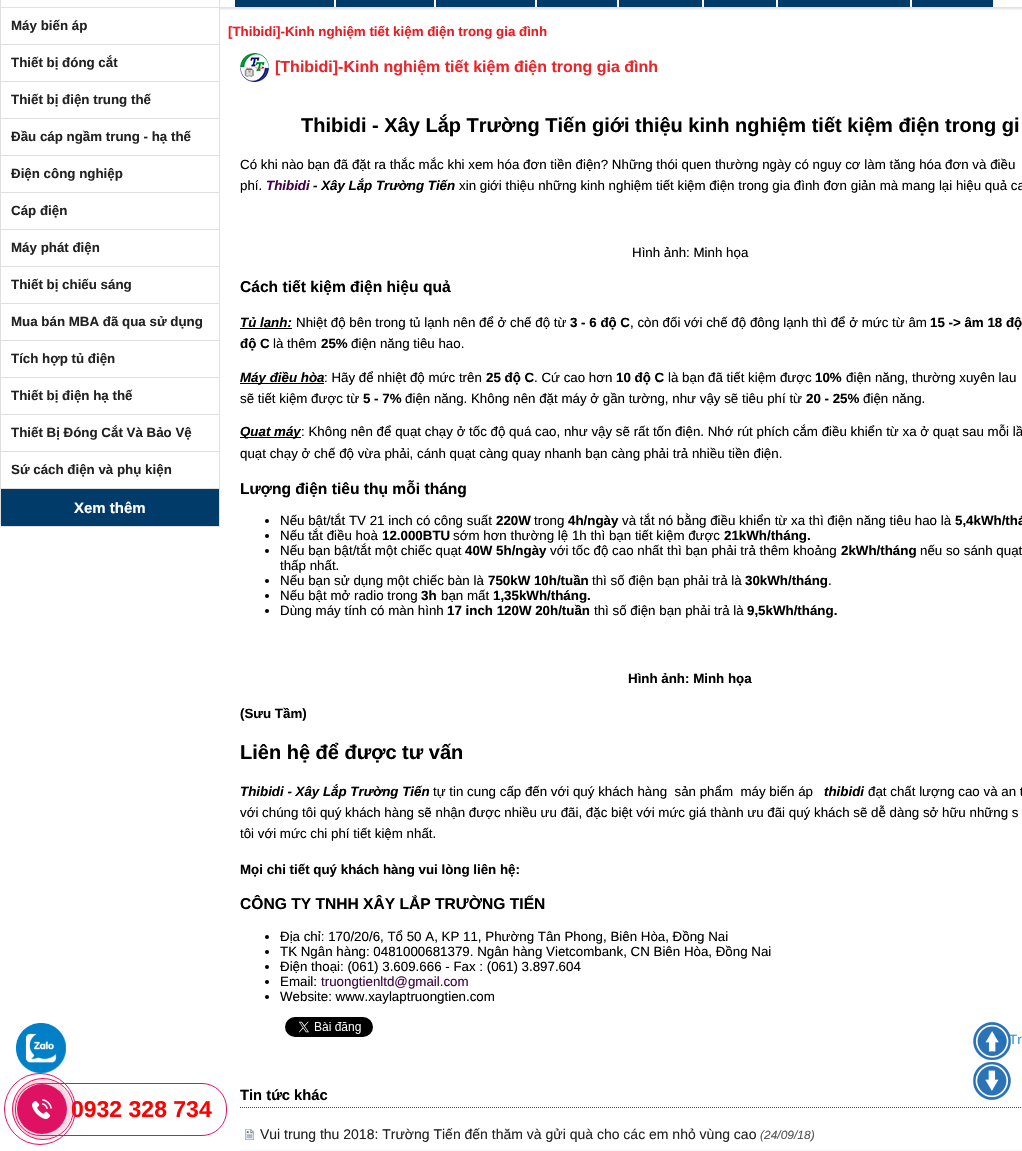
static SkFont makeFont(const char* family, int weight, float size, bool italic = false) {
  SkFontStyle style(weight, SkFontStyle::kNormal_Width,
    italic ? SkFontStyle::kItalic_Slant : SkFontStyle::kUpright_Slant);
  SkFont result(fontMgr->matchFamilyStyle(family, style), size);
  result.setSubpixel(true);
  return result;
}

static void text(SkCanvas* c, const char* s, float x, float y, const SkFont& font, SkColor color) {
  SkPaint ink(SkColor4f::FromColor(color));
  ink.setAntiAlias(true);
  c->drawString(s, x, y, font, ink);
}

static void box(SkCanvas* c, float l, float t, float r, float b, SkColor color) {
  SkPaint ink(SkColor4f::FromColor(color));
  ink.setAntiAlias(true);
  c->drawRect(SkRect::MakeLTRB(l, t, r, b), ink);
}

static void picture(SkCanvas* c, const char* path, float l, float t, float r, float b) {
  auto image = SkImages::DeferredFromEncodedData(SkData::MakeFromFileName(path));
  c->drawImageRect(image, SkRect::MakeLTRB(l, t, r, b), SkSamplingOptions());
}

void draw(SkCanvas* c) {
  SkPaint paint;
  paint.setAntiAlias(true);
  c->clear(0xffffffff);
  c->save();
  c->clipRect(SkRect::MakeLTRB(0, 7, 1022, 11));
  paint.setColor(0xffdfdfdf);
  paint.setMaskFilter(SkMaskFilter::MakeBlur(kNormal_SkBlurStyle, 1));
  c->drawRect(SkRect::MakeLTRB(-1, -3, 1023, 9), paint);
  paint.setMaskFilter(nullptr);
  c->restore();
  box(c, 235, 0, 334, 7, 0xff013b69);
  box(c, 336, 0, 434, 7, 0xff013b69);
  box(c, 436, 0, 535, 7, 0xff013b69);
  box(c, 537, 0, 617, 7, 0xff013b69);
  box(c, 619, 0, 702, 7, 0xff013b69);
  box(c, 704, 0, 776, 7, 0xff013b69);
  box(c, 778, 0, 910, 7, 0xff013b69);
  box(c, 912, 0, 993, 7, 0xff013b69);
  c->drawPath(SkPathBuilder(SkPathFillType::kEvenOdd).moveTo(3, -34).lineTo(217, -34).cubicTo(219, -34, 220, -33, 220, -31).lineTo(220, 7).lineTo(0, 7).lineTo(0, -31).cubicTo(0, -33, 1, -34, 3, -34).close().moveTo(3, -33).lineTo(217, -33).cubicTo(218, -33, 219, -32, 219, -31).lineTo(219, 7).lineTo(1, 7).lineTo(1, -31).cubicTo(1, -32, 2, -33, 3, -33).close().detach(), paint);
  paint.setColor(0xffffffff);
  c->drawPath(SkPathBuilder().moveTo(0, 8).lineTo(220, 8).lineTo(220, 527).lineTo(3, 527).cubicTo(1.5f, 527, 0, 525.5f, 0, 524).close().detach(), paint);
  paint.setColor(0xffdfdfdf);
  c->drawPath(SkPathBuilder(SkPathFillType::kEvenOdd).moveTo(0, 8).lineTo(220, 8).lineTo(220, 527).lineTo(3, 527).cubicTo(1, 527, 0, 526, 0, 524).close().moveTo(1, 8).lineTo(219, 8).lineTo(219, 526).lineTo(3, 526).cubicTo(2, 526, 1, 525, 1, 524).close().detach(), paint);
  box(c, 1, 44, 219, 45, 0xffdfdfdf);
  SkFont face1 = makeFont("Liberation Sans", 700, 13.33f);
  text(c, "Máy biến áp", 11, 30, face1, 0xff222222);
  box(c, 1, 81, 219, 82, 0xffdfdfdf);
  text(c, "Thiết bị đóng cắt", 11, 67, face1, 0xff222222);
  box(c, 1, 118, 219, 119, 0xffdfdfdf);
  text(c, "Thiết bị điện trung thế", 11, 104, face1, 0xff222222);
  box(c, 1, 155, 219, 156, 0xffdfdfdf);
  text(c, "Đầu cáp ngầm trung - hạ thế", 11, 141, face1, 0xff222222);
  box(c, 1, 192, 219, 193, 0xffdfdfdf);
  text(c, "Điện công nghiệp", 11, 178, face1, 0xff222222);
  box(c, 1, 229, 219, 230, 0xffdfdfdf);
  text(c, "Cáp điện", 11, 215, face1, 0xff222222);
  box(c, 1, 266, 219, 267, 0xffdfdfdf);
  text(c, "Máy phát điện", 11, 252, face1, 0xff222222);
  box(c, 1, 303, 219, 304, 0xffdfdfdf);
  text(c, "Thiết bị chiếu sáng", 11, 289, face1, 0xff222222);
  box(c, 1, 340, 219, 341, 0xffdfdfdf);
  text(c, "Mua bán MBA đã qua sử dụng", 11, 326, face1, 0xff222222);
  box(c, 1, 377, 219, 378, 0xffdfdfdf);
  text(c, "Tích hợp tủ điện", 11, 363, face1, 0xff222222);
  box(c, 1, 414, 219, 415, 0xffdfdfdf);
  text(c, "Thiết bị điện hạ thế", 11, 400, face1, 0xff222222);
  box(c, 1, 451, 219, 452, 0xffdfdfdf);
  text(c, "Thiết Bị Đóng Cắt Và Bảo Vệ", 11, 437, face1, 0xff222222);
  box(c, 1, 488, 219, 489, 0xffdfdfdf);
  text(c, "Sứ cách điện và phụ kiện", 11, 474, face1, 0xff222222);
  box(c, 1, 489, 219, 526, 0xff013b69);
  SkFont face2 = makeFont("Liberation Sans", 700, 15);
  text(c, "Xem thêm", 74, 513, face2, 0xffffffff);
  text(c, "[Thibidi]-Kinh nghiệm tiết kiệm điện trong gia đình", 228, 36, face1, 0xffed1c24);
  picture(c, "img_01.png", 240, 53, 269, 82);
  SkFont face3 = makeFont("Liberation Sans", 700, 16);
  text(c, "[Thibidi]-Kinh nghiệm tiết kiệm điện trong gia đình", 275, 72, face3, 0xffec252a);
  SkFont face4 = makeFont("Liberation Sans", 700, 20);
  text(c, "Thibidi - Xây Lắp Trường Tiến giới thiệu kinh nghiệm tiết kiệm điện trong gi", 301, 132, face4, 0xff000000);
  SkFont face5 = makeFont("Liberation Sans", 400, 13.33f);
  text(c, "Có khi nào bạn đã đặt ra thắc mắc khi xem hóa đơn tiền điện? Những thói quen thường ngày có nguy cơ làm tăng hóa đơn và điều", 240, 169, face5, 0xff000000);
  text(c, "phí.", 240, 190, face5, 0xff000000);
  SkFont face6 = makeFont("Liberation Sans", 700, 13.33f, true);
  text(c, "Thibidi", 266, 190, face6, 0xff410248);
  text(c, "- Xây Lắp Trường Tiến", 313, 190, face6, 0xff000000);
  text(c, "xin giới thiệu những kinh nghiệm tiết kiệm điện trong gia đình đơn giản mà mang lại hiệu quả ca", 459, 190, face5, 0xff000000);
  text(c, "Hình ảnh: Minh họa", 632, 257, face5, 0xff000000);
  SkFont face7 = makeFont("Liberation Sans", 700, 15.6f);
  text(c, "Cách tiết kiệm điện hiệu quả", 240, 292, face7, 0xff000000);
  box(c, 240, 328, 292, 329, 0xff000000);
  text(c, "Tủ lạnh:", 240, 327, face6, 0xff000000);
  text(c, "Nhiệt độ bên trong tủ lạnh nên để ở chế độ từ", 296, 327, face5, 0xff000000);
  text(c, "3 - 6 độ C", 570, 327, face1, 0xff000000);
  text(c, ", còn đối với chế độ đông lạnh thì để ở mức từ âm", 630, 327, face5, 0xff000000);
  text(c, "15 -> âm 18 độ", 930, 327, face1, 0xff000000);
  text(c, "độ C", 240, 348, face1, 0xff000000);
  text(c, "là thêm", 273, 348, face5, 0xff000000);
  text(c, "25%", 321, 348, face1, 0xff000000);
  text(c, "điện năng tiêu hao.", 351, 348, face5, 0xff000000);
  box(c, 240, 383, 324, 384, 0xff000000);
  text(c, "Máy điều hòa", 240, 382, face6, 0xff000000);
  text(c, ": Hãy để nhiệt độ mức trên", 324, 382, face5, 0xff000000);
  text(c, "25 độ C", 486, 382, face1, 0xff000000);
  text(c, ". Cứ cao hơn", 534, 382, face5, 0xff000000);
  text(c, "10 độ C", 616, 382, face1, 0xff000000);
  text(c, "là bạn đã tiết kiệm được", 668, 382, face5, 0xff000000);
  text(c, "10%", 815, 382, face1, 0xff000000);
  text(c, "điện năng, thường xuyên lau", 846, 382, face5, 0xff000000);
  text(c, "sẽ tiết kiệm được từ", 240, 403, face5, 0xff000000);
  text(c, "5 - 7%", 363, 403, face1, 0xff000000);
  text(c, "điện năng. Không nên đặt máy ở gần tường, như vậy sẽ tiêu phí từ", 405, 403, face5, 0xff000000);
  text(c, "20 - 25%", 806, 403, face1, 0xff000000);
  text(c, "điện năng.", 863, 403, face5, 0xff000000);
  box(c, 240, 437, 301, 438, 0xff000000);
  text(c, "Quạt máy", 240, 436, face6, 0xff000000);
  text(c, ": Không nên để quạt chạy ở tốc độ quá cao, như vậy sẽ rất tốn điện. Nhớ rút phích cắm điều khiển từ xa ở quạt sau mỗi lầ", 301, 436, face5, 0xff000000);
  text(c, "quạt chạy ở chế độ vừa phải, cánh quạt càng quay nhanh bạn càng phải trả nhiều tiền điện.", 240, 458, face5, 0xff000000);
  text(c, "Lượng điện tiêu thụ mỗi tháng", 240, 494, face7, 0xff000000);
  paint.setColor(0xff000000);
  c->drawCircle(267, 521, 2, paint);
  text(c, "Nếu bật/tắt TV 21 inch có công suất", 280, 525, face5, 0xff000000);
  text(c, "220W", 496, 525, face1, 0xff000000);
  text(c, "trong", 534, 525, face5, 0xff000000);
  text(c, "4h/ngày", 568, 525, face1, 0xff000000);
  text(c, "và tắt nó bằng điều khiển từ xa thì điện năng tiêu hao là", 622, 525, face5, 0xff000000);
  text(c, "5,4kWh/thá", 955, 525, face1, 0xff000000);
  c->drawCircle(267, 536, 2, paint);
  text(c, "Nếu tắt điều hoà", 280, 540, face5, 0xff000000);
  text(c, "12.000BTU", 382, 540, face1, 0xff000000);
  text(c, "sớm hơn thường lệ 1h thì bạn tiết kiệm được", 453, 540, face5, 0xff000000);
  text(c, "21kWh/tháng.", 724, 540, face1, 0xff000000);
  c->drawCircle(267, 551, 2, paint);
  text(c, "Nếu bạn bật/tắt một chiếc quạt", 280, 555, face5, 0xff000000);
  text(c, "40W 5h/ngày", 465, 555, face1, 0xff000000);
  text(c, "với tốc độ cao nhất thì bạn phải trả thêm khoảng", 550, 555, face5, 0xff000000);
  text(c, "2kWh/tháng", 841, 555, face1, 0xff000000);
  text(c, "nếu so sánh quạt", 920, 555, face5, 0xff000000);
  text(c, "thấp nhất.", 280, 570, face5, 0xff000000);
  c->drawCircle(267, 581, 2, paint);
  text(c, "Nếu bạn sử dụng một chiếc bàn là", 280, 585, face5, 0xff000000);
  text(c, "750kW 10h/tuần", 488, 585, face1, 0xff000000);
  text(c, "thì số điện bạn phải trả là", 592, 585, face5, 0xff000000);
  text(c, "30kWh/tháng", 745, 585, face1, 0xff000000);
  text(c, ".", 828, 585, face5, 0xff000000);
  c->drawCircle(267, 596, 2, paint);
  text(c, "Nếu bật mở radio trong", 280, 600, face5, 0xff000000);
  text(c, "3h", 421, 600, face1, 0xff000000);
  text(c, "bạn mất", 441, 600, face5, 0xff000000);
  text(c, "1,35kWh/tháng.", 493, 600, face1, 0xff000000);
  c->drawCircle(267, 611, 2, paint);
  text(c, "Dùng máy tính có màn hình", 280, 615, face5, 0xff000000);
  text(c, "17 inch 120W 20h/tuần", 447, 615, face1, 0xff000000);
  text(c, "thì số điện bạn phải trả là", 594, 615, face5, 0xff000000);
  text(c, "9,5kWh/tháng.", 747, 615, face1, 0xff000000);
  text(c, "Hình ảnh: Minh họa", 628, 683, face1, 0xff000000);
  text(c, "(Sưu Tầm)", 240, 718, face1, 0xff000000);
  text(c, "Liên hệ để được tư vấn", 240, 759, face4, 0xff000000);
  text(c, "Thibidi - Xây Lắp Trường Tiến", 240, 796, face6, 0xff000000);
  text(c, "tự tin cung cấp đến với quý khách hàng  sản phẩm  máy biến áp", 433, 796, face5, 0xff000000);
  text(c, "thibidi", 824, 796, face6, 0xff000000);
  text(c, "đạt chất lượng cao và an t", 868, 796, face5, 0xff000000);
  text(c, "với chúng tôi quý khách hàng sẽ nhận được nhiều ưu đãi, đặc biệt với mức giá thành ưu đãi quý khách sẽ dễ dàng sở hữu những s", 240, 817, face5, 0xff000000);
  text(c, "tôi với mức chi phí tiết kiệm nhất.", 240, 838, face5, 0xff000000);
  text(c, "Mọi chi tiết quý khách hàng vui lòng liên hệ:", 240, 874, face1, 0xff000000);
  text(c, "CÔNG TY TNHH XÂY LẮP TRƯỜNG TIẾN", 240, 909, face7, 0xff000000);
  c->drawCircle(267, 937, 2, paint);
  text(c, "Địa chỉ: 170/20/6, Tổ 50 A, KP 11, Phường Tân Phong, Biên Hòa, Đồng Nai", 280, 941, face5, 0xff000000);
  c->drawCircle(267, 952, 2, paint);
  text(c, "TK Ngân hàng: 0481000681379. Ngân hàng Vietcombank, CN Biên Hòa, Đồng Nai", 280, 956, face5, 0xff000000);
  c->drawCircle(267, 967, 2, paint);
  text(c, "Điện thoại: (061) 3.609.666 - Fax : (061) 3.897.604", 280, 971, face5, 0xff000000);
  c->drawCircle(267, 982, 2, paint);
  text(c, "Email:", 280, 986, face5, 0xff000000);
  text(c, "truongtienltd@gmail.com", 321, 986, face5, 0xff410248);
  c->drawCircle(267, 997, 2, paint);
  text(c, "Website: www.xaylaptruongtien.com", 280, 1001, face5, 0xff000000);
  picture(c, "img_02.png", 285, 1017, 373, 1037);
  picture(c, "img_03.png", 992, 1034, 1006, 1045);
  text(c, "Tr", 1009, 1044, face5, 0xff2997ca);
  paint.setStyle(SkPaint::kStroke_Style);
  paint.setStrokeWidth(1);
  paint.setColor(0xff4a4444);
  paint.setPathEffect(SkDashPathEffect::Make({{1, 1}}, 0));
  c->drawPath(SkPathBuilder().moveTo(240, 1107.5f).lineTo(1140, 1107.5f).detach(), paint);
  paint.setPathEffect(nullptr);
  SkFont face8 = makeFont("Liberation Sans", 700, 14.75f);
  text(c, "Tin tức khác", 240, 1100, face8, 0xff000000);
  picture(c, "img_04.png", 245, 1129, 254, 1140);
  SkFont face9 = makeFont("Liberation Sans", 400, 14);
  text(c, "Vui trung thu 2018: Trường Tiến đến thăm và gửi quà cho các em nhỏ vùng cao", 260, 1139, face9, 0xff222222);
  SkFont face10 = makeFont("Liberation Sans", 400, 12, true);
  text(c, "(24/09/18)", 760, 1139, face10, 0xff555555);
  box(c, 240, 1150, 1022, 1151, 0xfff6f6f6);
  picture(c, "img_05.png", 16, 1023, 66, 1073);
  picture(c, "img_06.png", 973, 1022, 1011, 1060);
  paint.setColor(0xffdf1163);
  c->drawRoundRect(SkRect::MakeLTRB(15.5f, 1083.5f, 226.5f, 1135.5f), 24.5f, 24.5f, paint);
  SkFont face11 = makeFont("Liberation Sans", 700, 23);
  text(c, "0932 328 734", 71, 1117, face11, 0xffff0000);
  paint.setStyle(SkPaint::kFill_Style);
  paint.setColor(0x33f23b79);
  c->drawCircle(42, 1109, 30, paint);
  paint.setStyle(SkPaint::kStroke_Style);
  paint.setColor(0xffdf1163);
  c->drawCircle(40, 1109, 35.5f, paint);
  c->drawCircle(43, 1109, 30.5f, paint);
  paint.setStyle(SkPaint::kFill_Style);
  c->drawCircle(42, 1109, 25, paint);
  picture(c, "img_07.png", 32, 1099, 52, 1119);
  picture(c, "img_08.png", 973, 1062, 1011, 1100);
}
